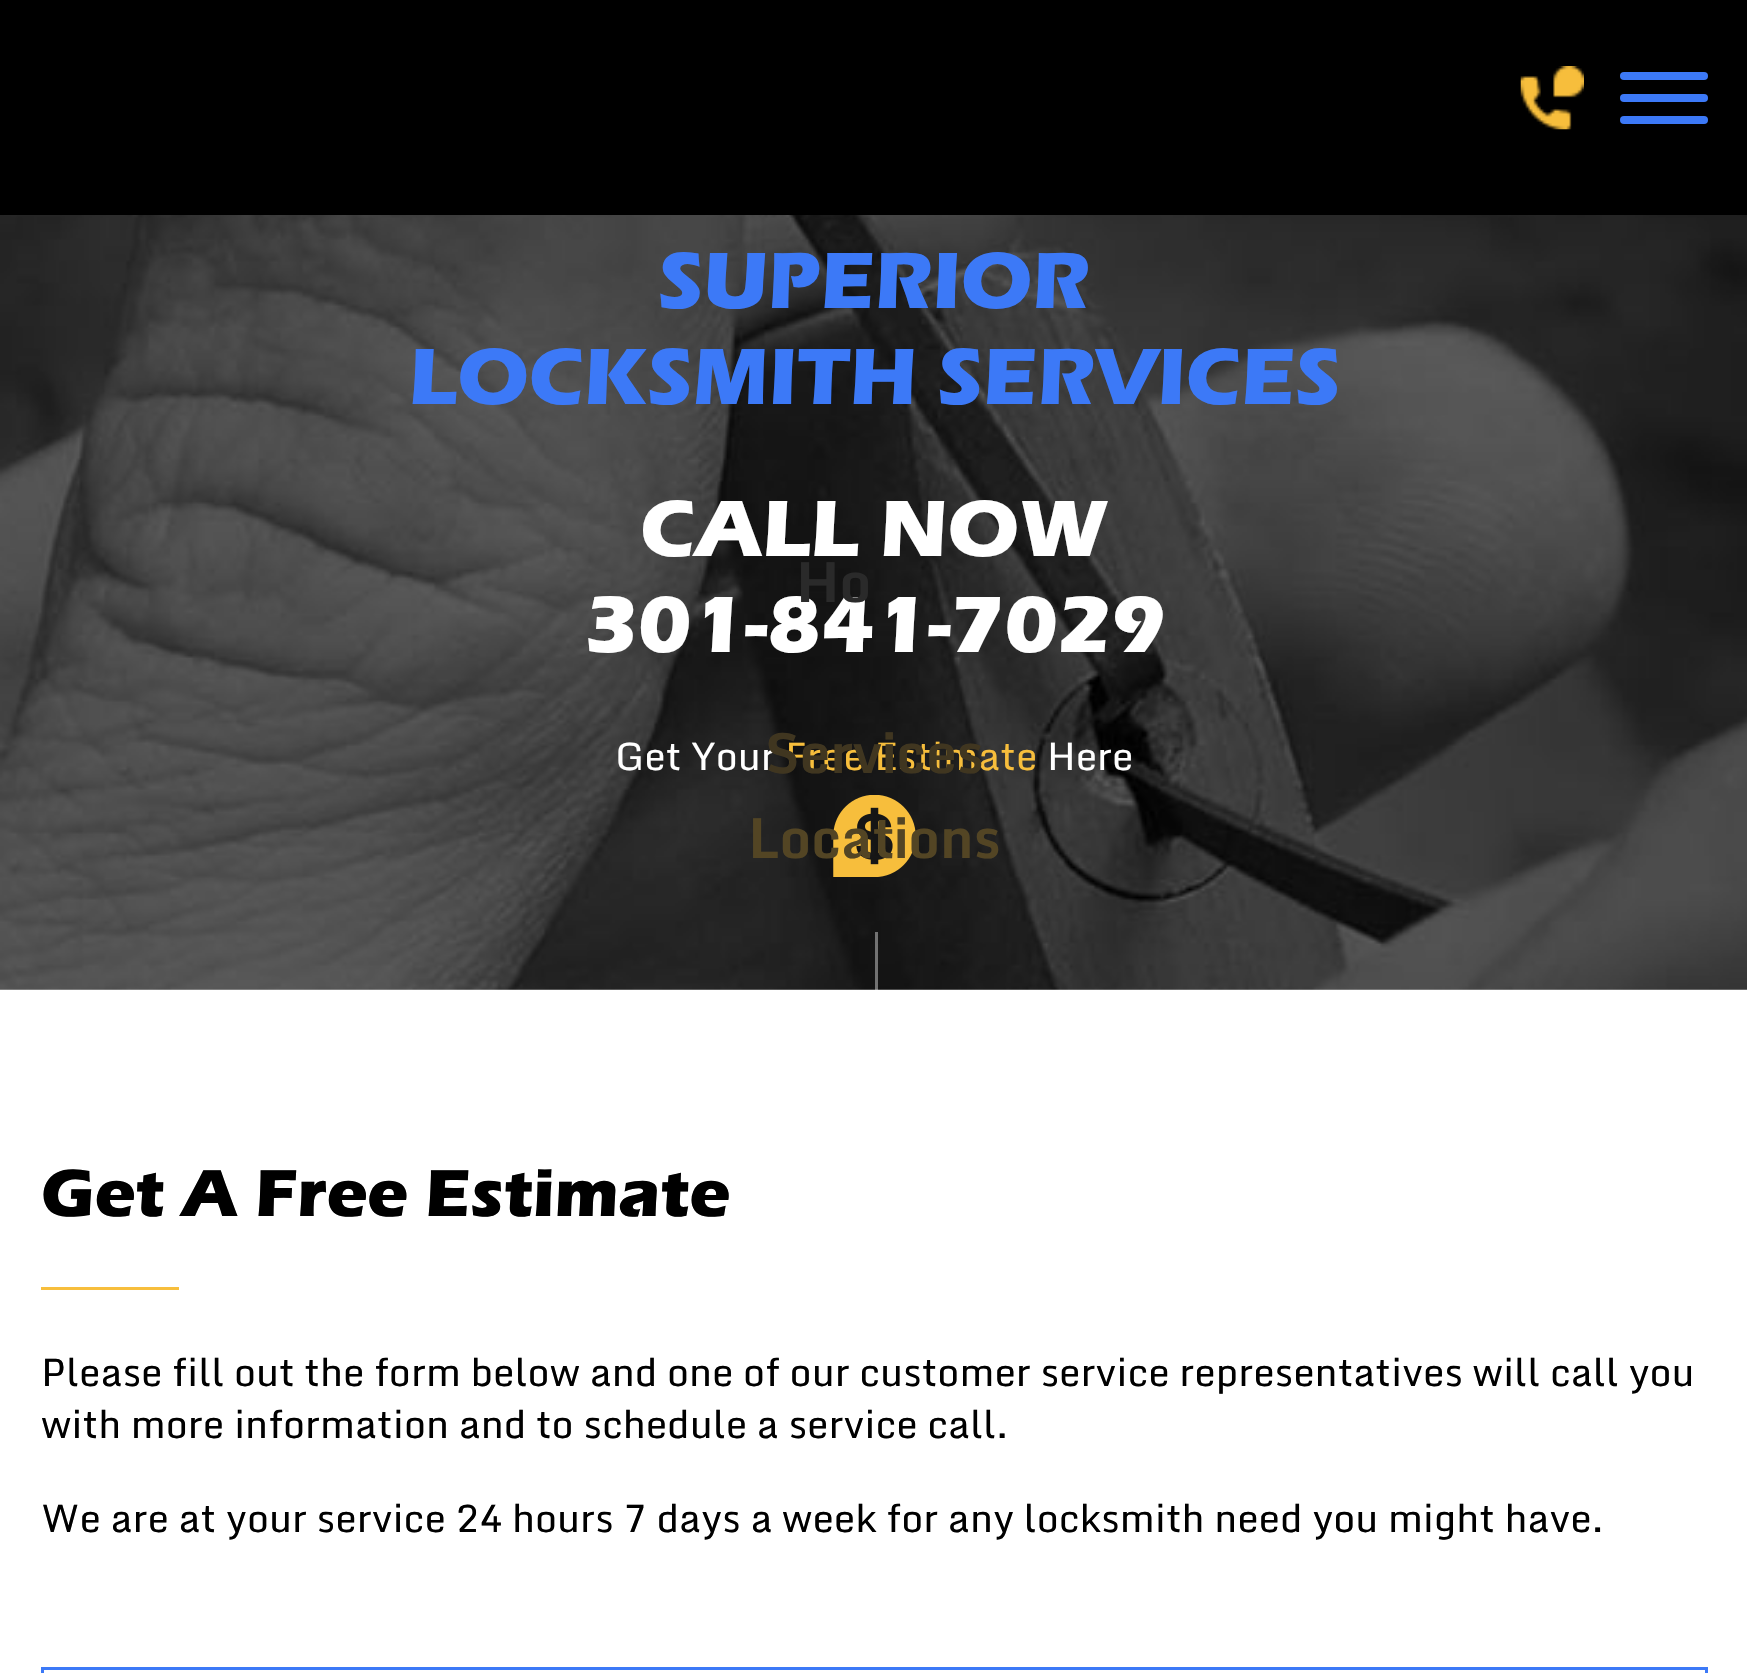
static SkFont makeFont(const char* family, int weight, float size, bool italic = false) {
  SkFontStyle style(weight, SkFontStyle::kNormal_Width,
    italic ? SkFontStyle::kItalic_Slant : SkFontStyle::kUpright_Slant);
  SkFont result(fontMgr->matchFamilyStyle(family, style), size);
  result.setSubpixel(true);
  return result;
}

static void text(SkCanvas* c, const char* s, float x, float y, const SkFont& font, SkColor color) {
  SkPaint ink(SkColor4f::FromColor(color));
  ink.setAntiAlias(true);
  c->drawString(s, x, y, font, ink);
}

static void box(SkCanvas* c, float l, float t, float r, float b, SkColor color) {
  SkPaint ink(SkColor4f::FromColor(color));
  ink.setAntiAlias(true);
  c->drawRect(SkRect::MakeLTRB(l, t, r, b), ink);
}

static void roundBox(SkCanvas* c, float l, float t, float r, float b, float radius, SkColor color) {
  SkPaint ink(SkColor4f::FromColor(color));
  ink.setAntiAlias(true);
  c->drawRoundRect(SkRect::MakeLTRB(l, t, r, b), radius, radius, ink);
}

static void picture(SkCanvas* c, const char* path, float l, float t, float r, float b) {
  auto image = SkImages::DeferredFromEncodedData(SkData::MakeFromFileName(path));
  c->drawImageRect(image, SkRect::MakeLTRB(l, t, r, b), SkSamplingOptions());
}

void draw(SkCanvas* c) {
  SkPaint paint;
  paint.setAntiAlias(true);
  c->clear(0xffffffff);
  picture(c, "img_01.png", 0, 215, 1747, 990);
  SkFont face1 = makeFont("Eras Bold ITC", 700, 82.5f);
  text(c, "SUPERIOR", 658, 308, face1, 0xff3c79f7);
  text(c, "LOCKSMITH SERVICES", 409, 404, face1, 0xff3c79f7);
  text(c, "CALL NOW", 640, 556, face1, 0xffffffff);
  text(c, "301-841-7029", 584, 652, face1, 0xffffffff);
  SkFont face2 = makeFont("Monda", 400, 38.5f);
  text(c, "Get Your", 615, 770, face2, 0xffffffff);
  text(c, "Free Estimate", 785, 770, face2, 0xfff7be3c);
  text(c, "Here", 1047, 770, face2, 0xffffffff);
  picture(c, "img_02.png", 833, 795, 916, 877);
  box(c, 875, 932, 878, 990, 0x66ffffff);
  box(c, 0, 0, 1747, 215, 0xff000000);
  picture(c, "img_03.png", 1520, 66, 1584, 130);
  roundBox(c, 1620, 94, 1708, 102, 4, 0xff3c79f7);
  roundBox(c, 1620, 72, 1708, 80, 4, 0xff3c79f7);
  roundBox(c, 1620, 116, 1708, 124, 4, 0xff3c79f7);
  SkFont face3 = makeFont("Monda", 700, 55);
  text(c, "Ho", 796, 602, face3, 0xff2a2a2a);
  text(c, "Services", 765, 773, face3, 0xff403620);
  text(c, "Locations", 748, 858, face3, 0xff534524);
  SkFont face4 = makeFont("Eras Bold ITC", 700, 68.75f);
  text(c, "Get A Free Estimate", 41, 1216, face4, 0xff000000);
  box(c, 41, 1287, 179, 1290, 0xfff7be3c);
  text(c, "Please fill out the form below and one of our customer service representatives will call you", 41, 1386, face2, 0xff000000);
  text(c, "with more information and to schedule a service call.", 41, 1438, face2, 0xff000000);
  text(c, "We are at your service 24 hours 7 days a week for any locksmith need you might have.", 41, 1532, face2, 0xff000000);
  paint.setStyle(SkPaint::kStroke_Style);
  paint.setStrokeWidth(3);
  paint.setColor(0xff3c79f7);
  c->drawRect(SkRect::MakeLTRB(42.5f, 1668.5f, 1706.5f, 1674.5f), paint);
}
